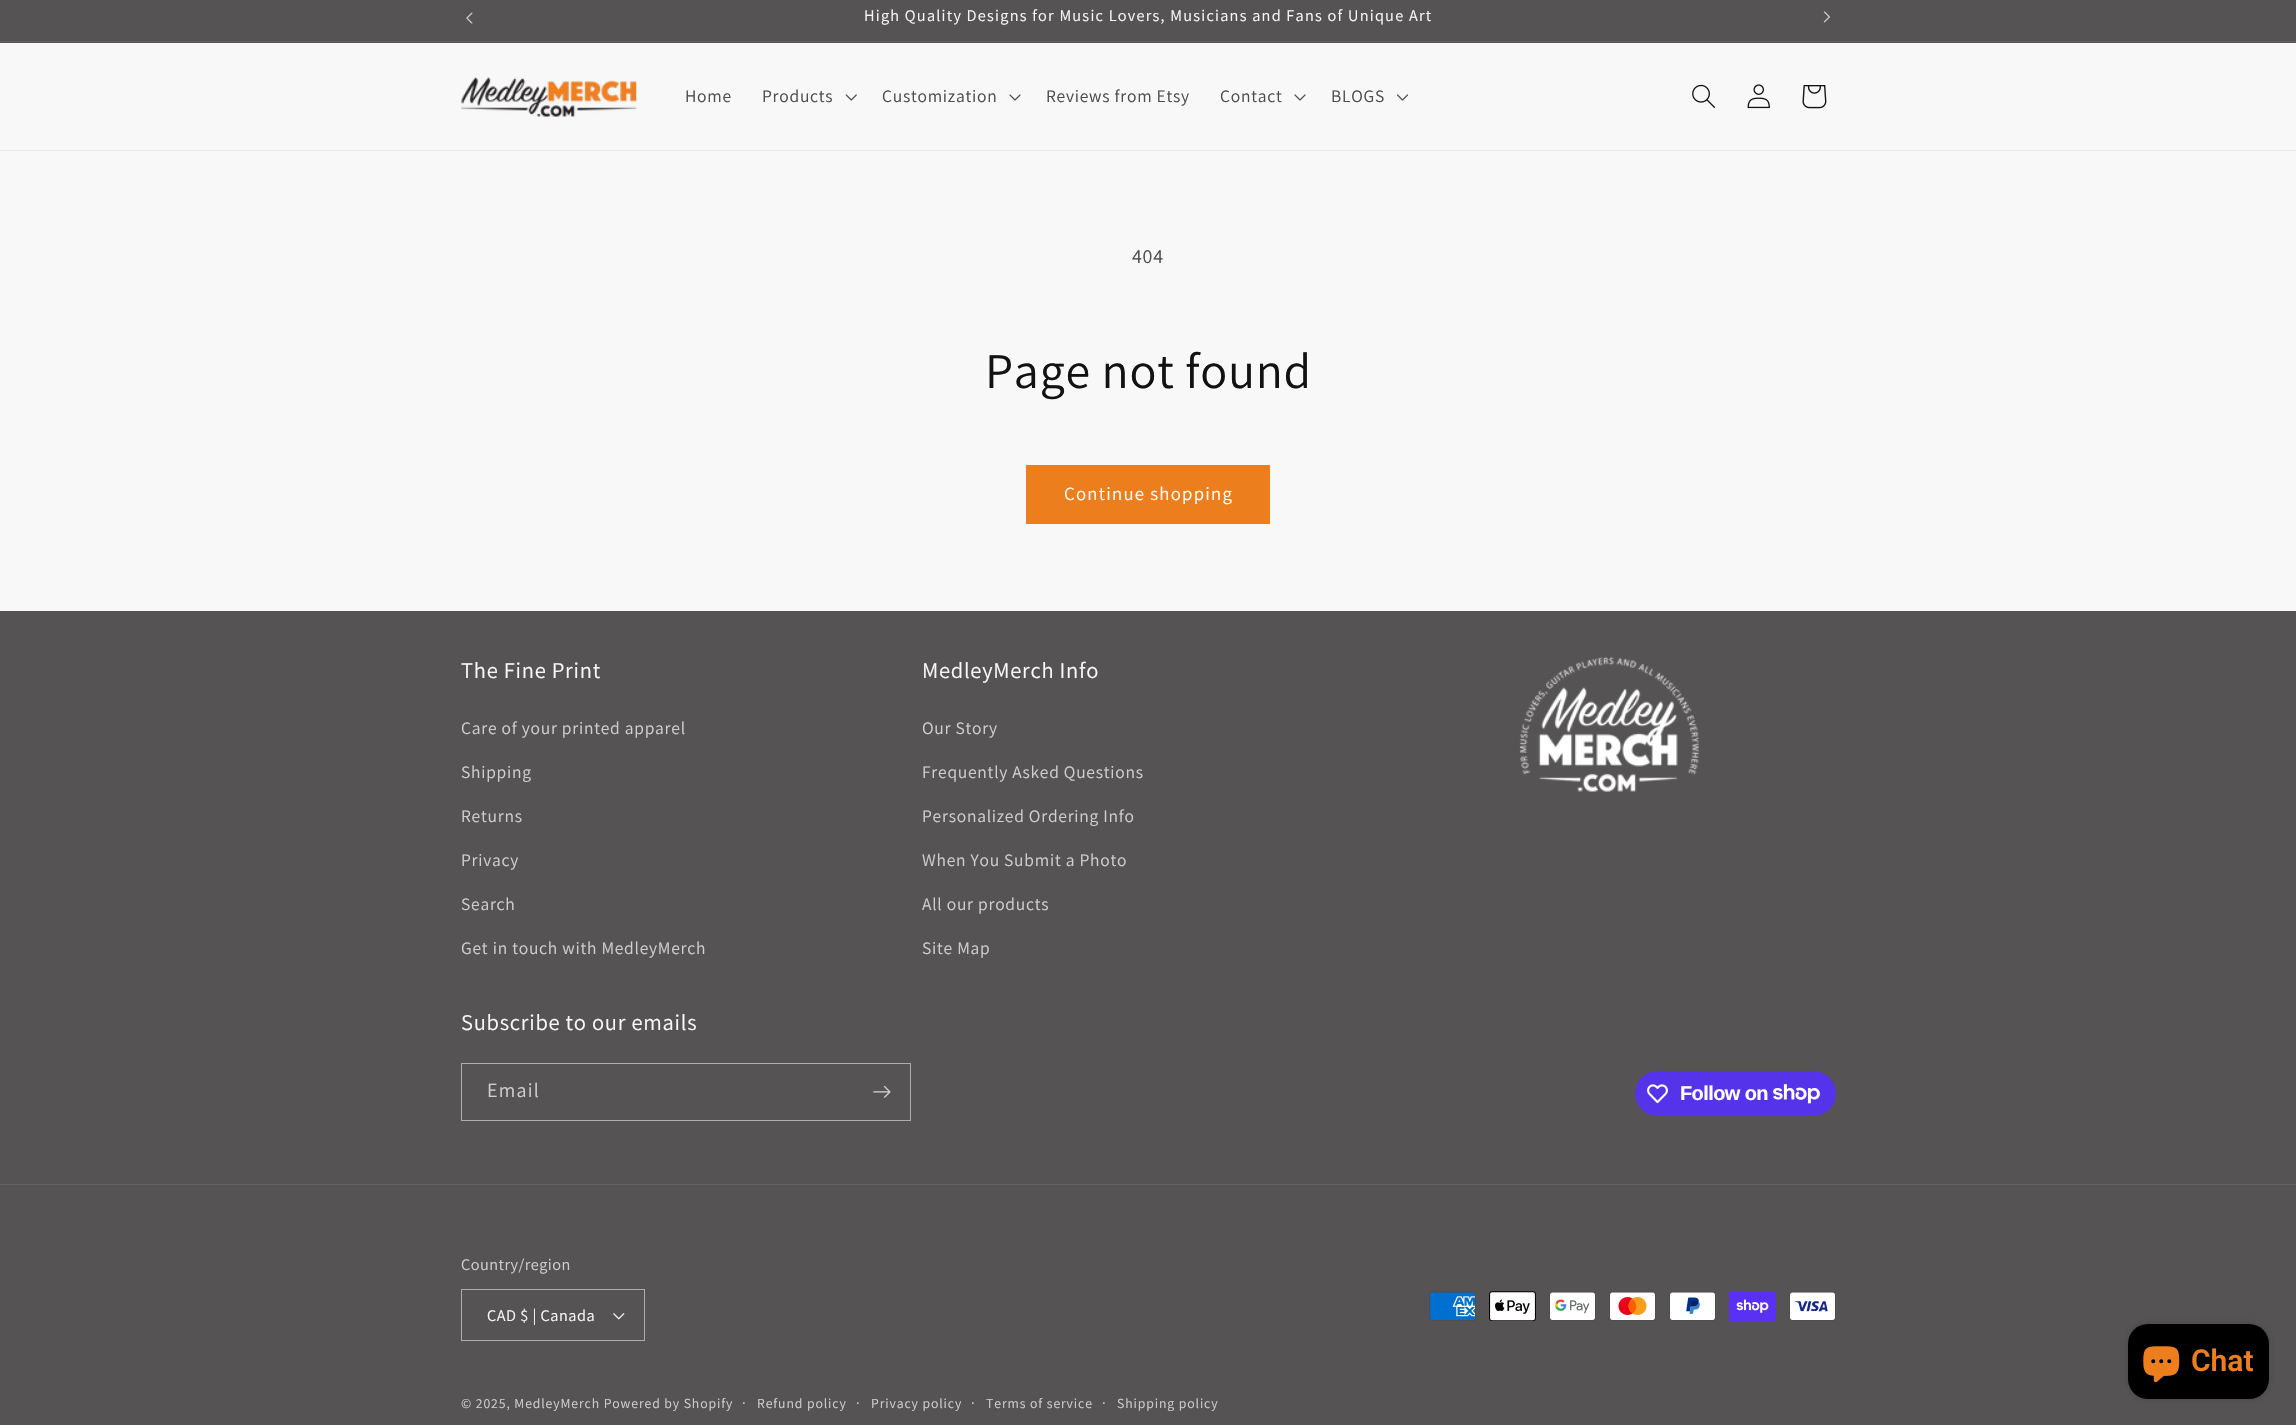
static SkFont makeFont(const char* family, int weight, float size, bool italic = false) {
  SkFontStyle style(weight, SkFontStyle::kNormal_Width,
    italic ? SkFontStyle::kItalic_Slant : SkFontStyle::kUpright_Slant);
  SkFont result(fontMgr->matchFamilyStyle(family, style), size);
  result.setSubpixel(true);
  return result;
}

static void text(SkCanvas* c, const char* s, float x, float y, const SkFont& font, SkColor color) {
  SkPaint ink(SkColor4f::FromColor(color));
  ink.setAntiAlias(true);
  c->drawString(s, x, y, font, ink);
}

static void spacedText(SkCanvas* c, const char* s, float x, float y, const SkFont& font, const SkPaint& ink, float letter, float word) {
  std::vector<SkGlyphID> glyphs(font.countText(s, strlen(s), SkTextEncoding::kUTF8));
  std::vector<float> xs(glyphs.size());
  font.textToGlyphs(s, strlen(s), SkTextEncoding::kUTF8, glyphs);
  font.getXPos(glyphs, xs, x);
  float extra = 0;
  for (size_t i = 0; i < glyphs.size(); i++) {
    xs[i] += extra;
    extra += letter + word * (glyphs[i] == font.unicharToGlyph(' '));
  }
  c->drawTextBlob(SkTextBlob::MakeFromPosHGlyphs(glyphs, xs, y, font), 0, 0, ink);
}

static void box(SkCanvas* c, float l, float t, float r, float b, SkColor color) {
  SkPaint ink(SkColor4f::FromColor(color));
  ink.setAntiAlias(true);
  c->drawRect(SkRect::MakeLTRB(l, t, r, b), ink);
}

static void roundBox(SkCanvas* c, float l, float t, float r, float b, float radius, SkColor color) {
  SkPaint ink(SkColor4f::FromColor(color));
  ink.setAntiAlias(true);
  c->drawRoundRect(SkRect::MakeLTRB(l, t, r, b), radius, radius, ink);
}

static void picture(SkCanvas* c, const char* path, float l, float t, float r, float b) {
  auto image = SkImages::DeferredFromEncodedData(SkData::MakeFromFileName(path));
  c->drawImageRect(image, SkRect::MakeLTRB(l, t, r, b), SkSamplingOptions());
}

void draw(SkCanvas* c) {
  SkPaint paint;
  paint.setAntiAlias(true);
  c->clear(0xfff8f8f8);
  box(c, 0, 0, 2296, 43, 0xff555353);
  box(c, 0, 41, 2296, 42, 0xff626060);
  picture(c, "img_01.png", 466, 12, 473, 24);
  SkFont face1 = makeFont("Assistant", 400, 16.25f);
  paint.setColor(0xfff9f8f8);
  spacedText(c, "High Quality Designs for Music Lovers, Musicians and Fans of Unique Art", 864, 21, face1, paint, 1.25f, 0);
  picture(c, "img_02.png", 1823, 11, 1830, 23);
  box(c, 0, 150, 2296, 151, 0xffe6e6e6);
  picture(c, "img_03.png", 461, 77, 637, 117);
  SkFont face2 = makeFont("Assistant", 400, 17.5f);
  paint.setColor(0xff4c4c4c);
  spacedText(c, "Home", 685, 102, face2, paint, 0.75f, 0);
  spacedText(c, "Products", 762, 102, face2, paint, 0.75f, 0);
  picture(c, "img_04.png", 845, 94, 857, 101);
  spacedText(c, "Customization", 882, 102, face2, paint, 0.75f, 0);
  picture(c, "img_05.png", 1009, 94, 1021, 101);
  spacedText(c, "Reviews from Etsy", 1046, 102, face2, paint, 0.75f, 0);
  spacedText(c, "Contact", 1220, 102, face2, paint, 0.75f, 0);
  picture(c, "img_05.png", 1294, 94, 1306, 101);
  spacedText(c, "BLOGS", 1331, 102, face2, paint, 0.75f, 0);
  picture(c, "img_06.png", 1397, 94, 1408, 101);
  picture(c, "img_07.png", 1692, 84, 1715, 108);
  picture(c, "img_08.png", 1747, 84, 1770, 109);
  picture(c, "img_09.png", 1802, 85, 1827, 109);
  SkFont face3 = makeFont("Assistant", 400, 20);
  spacedText(c, "404", 1132, 263, face3, paint, 0.75f, 0);
  SkFont face4 = makeFont("Assistant", 400, 50);
  paint.setColor(0xff121212);
  spacedText(c, "Page not found", 985, 388, face4, paint, 0.75f, 0);
  box(c, 1026, 465, 1270, 524, 0xffed7e1e);
  SkFont face5 = makeFont("Assistant", 400, 18.75f);
  paint.setColor(0xffffffff);
  spacedText(c, "Continue shopping", 1064, 500, face5, paint, 1.25f, 0);
  box(c, 0, 611, 2296, 1425, 0xff555353);
  SkFont face6 = makeFont("Assistant", 400, 22.5f);
  paint.setColor(0xfff9f8f8);
  spacedText(c, "The Fine Print", 461, 678, face6, paint, 0.75f, 0);
  paint.setColor(0xffd0cfcf);
  spacedText(c, "Care of your printed apparel", 461, 734, face2, paint, 0.75f, 0);
  spacedText(c, "Shipping", 461, 778, face2, paint, 0.75f, 0);
  spacedText(c, "Returns", 461, 822, face2, paint, 0.75f, 0);
  spacedText(c, "Privacy", 461, 866, face2, paint, 0.75f, 0);
  spacedText(c, "Search", 461, 910, face2, paint, 0.75f, 0);
  spacedText(c, "Get in touch with MedleyMerch", 461, 954, face2, paint, 0.75f, 0);
  paint.setColor(0xfff9f8f8);
  spacedText(c, "MedleyMerch Info", 922, 678, face6, paint, 0.75f, 0);
  paint.setColor(0xffd0cfcf);
  spacedText(c, "Our Story", 922, 734, face2, paint, 0.75f, 0);
  spacedText(c, "Frequently Asked Questions", 922, 778, face2, paint, 0.75f, 0);
  spacedText(c, "Personalized Ordering Info", 922, 822, face2, paint, 0.75f, 0);
  spacedText(c, "When You Submit a Photo", 922, 866, face2, paint, 0.75f, 0);
  spacedText(c, "All our products", 922, 910, face2, paint, 0.75f, 0);
  spacedText(c, "Site Map", 922, 954, face2, paint, 0.75f, 0);
  picture(c, "img_10.png", 1519, 656, 1699, 792);
  paint.setColor(0xfff9f8f8);
  spacedText(c, "Subscribe to our emails", 461, 1030, face6, paint, 0.75f, 0);
  paint.setStyle(SkPaint::kStroke_Style);
  paint.setStrokeWidth(1);
  paint.setColor(0xffafaeae);
  c->drawRect(SkRect::MakeLTRB(461.5f, 1063.5f, 910.5f, 1120.5f), paint);
  paint.setStyle(SkPaint::kFill_Style);
  paint.setColor(0xffd0cfcf);
  spacedText(c, "Email", 487, 1097, face3, paint, 1.25f, 0);
  picture(c, "img_11.png", 873, 1085, 891, 1098);
  roundBox(c, 1635, 1071, 1836, 1116, 22.5f, 0xff5433eb);
  picture(c, "img_12.png", 1647, 1084, 1668, 1104);
  SkFont face7 = makeFont("Liberation Sans", 700, 20);
  paint.setColor(0xffffffff);
  spacedText(c, "Follow on", 1680, 1100, face7, paint, -0.6f, 0);
  picture(c, "img_13.png", 1773, 1084, 1820, 1104);
  box(c, 0, 1184, 2296, 1185, 0xff626060);
  paint.setColor(0xffd0cfcf);
  spacedText(c, "Country/region", 461, 1270, face1, paint, 0.5f, 0);
  picture(c, "img_14.png", 613, 1313, 625, 1320);
  paint.setStyle(SkPaint::kStroke_Style);
  paint.setColor(0xffafaeae);
  c->drawRect(SkRect::MakeLTRB(461.5f, 1289.5f, 644.5f, 1340.5f), paint);
  paint.setStyle(SkPaint::kFill_Style);
  paint.setColor(0xfff9f8f8);
  spacedText(c, "CAD $ | Canada", 487, 1321, face1, paint, 0.5f, 0);
  picture(c, "img_15.png", 1429, 1291, 1476, 1321);
  picture(c, "img_16.png", 1489, 1291, 1536, 1321);
  picture(c, "img_17.png", 1549, 1291, 1596, 1321);
  picture(c, "img_18.png", 1609, 1291, 1656, 1321);
  picture(c, "img_19.png", 1669, 1291, 1716, 1321);
  picture(c, "img_20.png", 1729, 1291, 1776, 1321);
  picture(c, "img_21.png", 1789, 1291, 1836, 1321);
  SkFont face8 = makeFont("Assistant", 400, 13.75f);
  paint.setColor(0xffd0cfcf);
  spacedText(c, "© 2025, MedleyMerch Powered by Shopify", 461, 1408, face8, paint, 0.9f, 0);
  SkFont face9 = makeFont("Assistant", 400, 15);
  spacedText(c, "·", 742, 1408, face9, paint, 0.9f, 0);
  spacedText(c, "Refund policy", 757, 1408, face8, paint, 0.9f, 0);
  spacedText(c, "·", 856, 1408, face9, paint, 0.9f, 0);
  spacedText(c, "Privacy policy", 871, 1408, face8, paint, 0.9f, 0);
  spacedText(c, "·", 971, 1408, face9, paint, 0.9f, 0);
  spacedText(c, "Terms of service", 986, 1408, face8, paint, 0.9f, 0);
  spacedText(c, "·", 1102, 1408, face9, paint, 0.9f, 0);
  spacedText(c, "Shipping policy", 1117, 1408, face8, paint, 0.9f, 0);
  paint.setColor(0x26000000);
  paint.setMaskFilter(SkMaskFilter::MakeBlur(kNormal_SkBlurStyle, 3));
  c->drawRoundRect(SkRect::MakeLTRB(2128, 1324, 2269, 1399), 20, 20, paint);
  paint.setMaskFilter(nullptr);
  roundBox(c, 2128, 1324, 2269, 1399, 20, 0xff000000);
  picture(c, "img_22.png", 2143, 1346, 2180, 1383);
  SkFont face10 = makeFont("Roboto", 600, 30);
  text(c, "Chat", 2191, 1371, face10, 0xffed7e1e);
}
